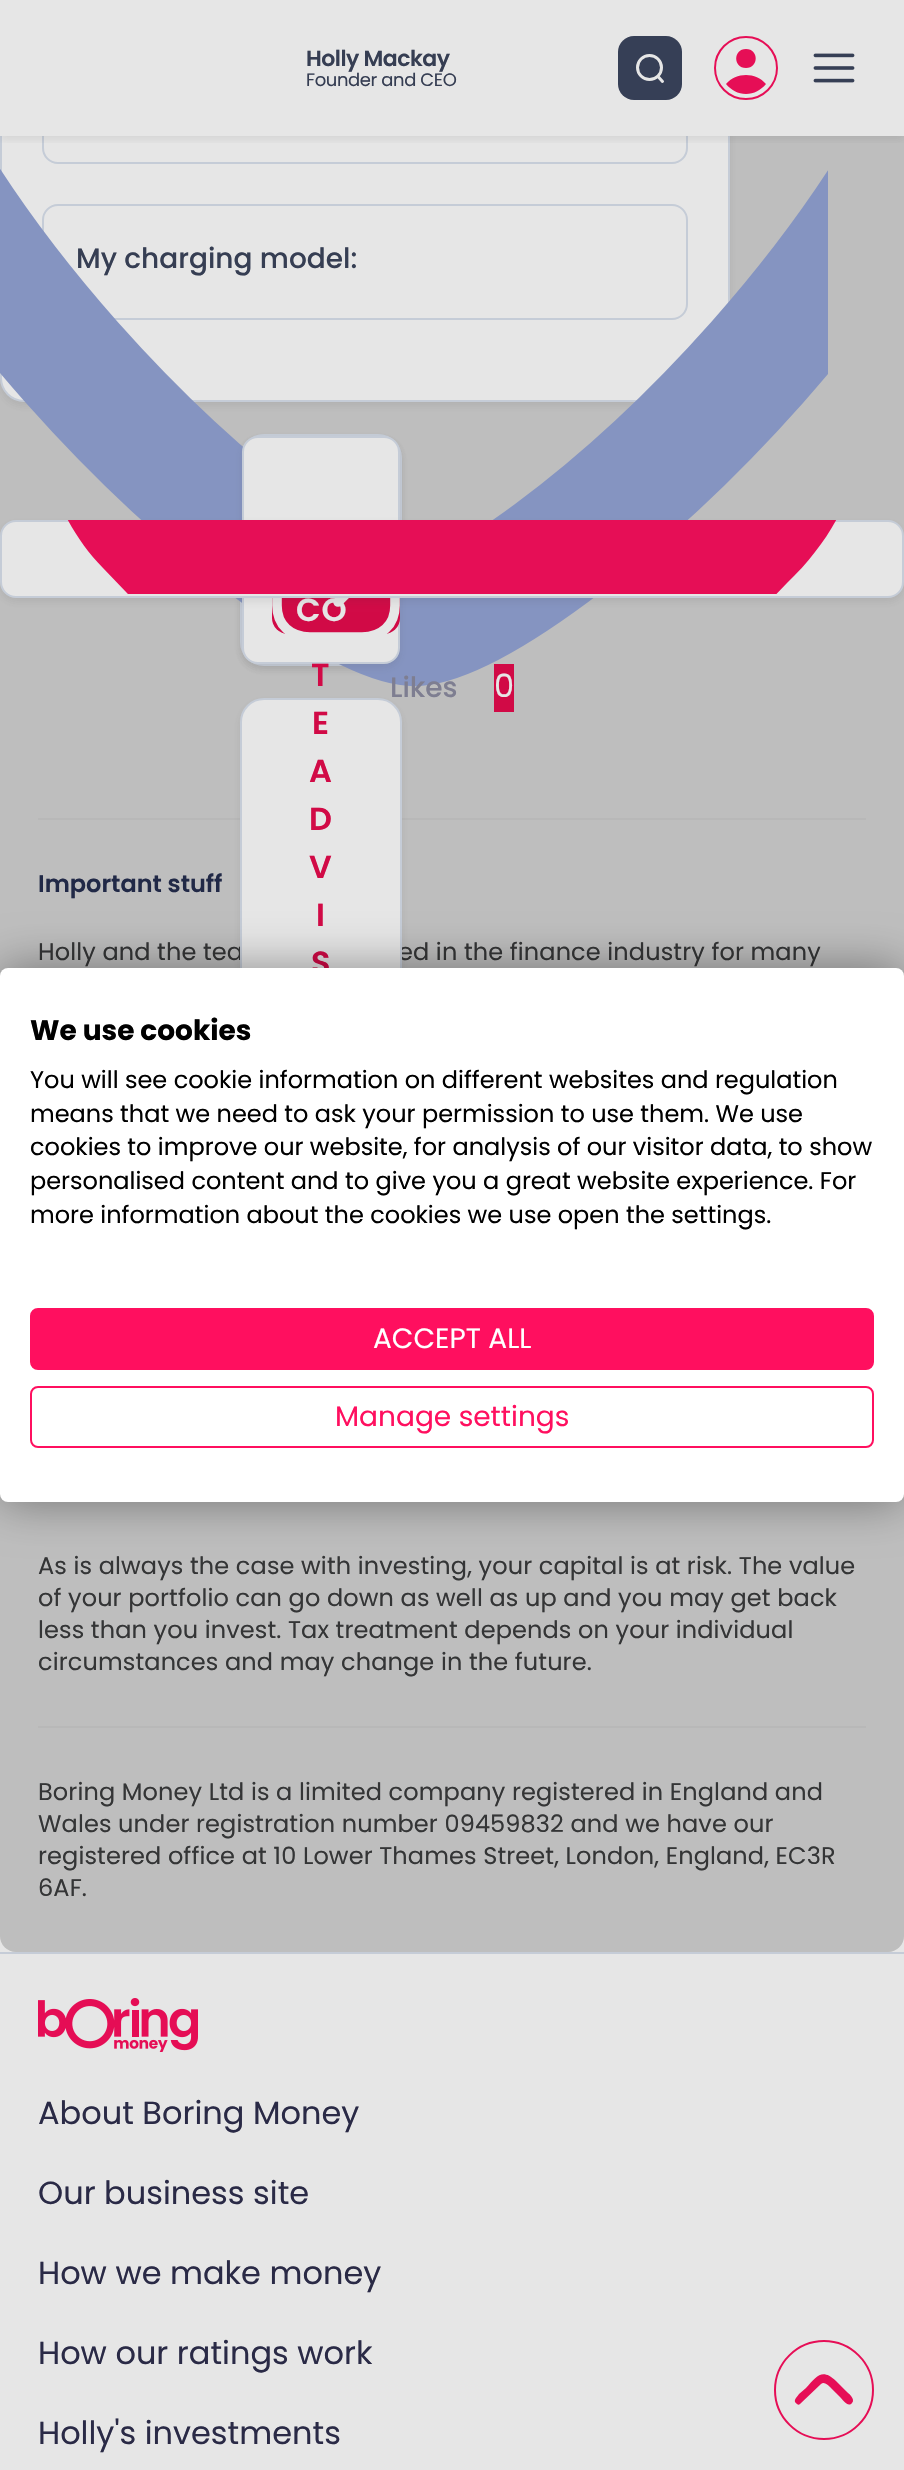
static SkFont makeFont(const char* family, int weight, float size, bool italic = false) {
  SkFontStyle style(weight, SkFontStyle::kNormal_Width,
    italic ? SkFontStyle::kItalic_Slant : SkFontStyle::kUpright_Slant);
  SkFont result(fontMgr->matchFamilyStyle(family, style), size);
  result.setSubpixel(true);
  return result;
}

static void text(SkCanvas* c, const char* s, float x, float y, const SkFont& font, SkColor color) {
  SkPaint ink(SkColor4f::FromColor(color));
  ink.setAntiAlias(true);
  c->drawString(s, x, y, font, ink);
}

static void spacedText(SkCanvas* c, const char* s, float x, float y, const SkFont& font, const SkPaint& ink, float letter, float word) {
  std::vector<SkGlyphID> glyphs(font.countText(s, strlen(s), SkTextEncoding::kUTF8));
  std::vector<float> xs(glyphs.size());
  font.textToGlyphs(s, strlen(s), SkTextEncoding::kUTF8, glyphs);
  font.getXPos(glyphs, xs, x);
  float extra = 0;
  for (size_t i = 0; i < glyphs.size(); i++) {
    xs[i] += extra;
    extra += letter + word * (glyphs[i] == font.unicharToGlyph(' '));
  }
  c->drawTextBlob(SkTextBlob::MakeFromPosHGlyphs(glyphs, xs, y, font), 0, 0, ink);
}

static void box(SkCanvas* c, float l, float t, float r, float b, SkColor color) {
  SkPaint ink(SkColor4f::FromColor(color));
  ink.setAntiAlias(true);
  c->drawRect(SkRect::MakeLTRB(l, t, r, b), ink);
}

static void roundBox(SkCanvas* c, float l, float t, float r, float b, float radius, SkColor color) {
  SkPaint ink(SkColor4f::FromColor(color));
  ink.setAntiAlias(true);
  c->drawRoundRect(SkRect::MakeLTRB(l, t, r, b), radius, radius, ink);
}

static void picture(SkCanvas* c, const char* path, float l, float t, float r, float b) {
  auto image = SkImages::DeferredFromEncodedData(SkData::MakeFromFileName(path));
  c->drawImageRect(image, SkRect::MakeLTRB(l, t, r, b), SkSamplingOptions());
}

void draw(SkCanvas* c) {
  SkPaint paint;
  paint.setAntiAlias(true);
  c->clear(0xffe6e6e6);
  roundBox(c, 0, -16, 904, 1952, 16, 0xffbebebe);
  paint.setColor(0x1a3a3a3a);
  paint.setMaskFilter(SkMaskFilter::MakeBlur(kNormal_SkBlurStyle, 4));
  c->drawRoundRect(SkRect::MakeLTRB(0, -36, 730, 406), 24, 24, paint);
  paint.setMaskFilter(nullptr);
  paint.setColor(0xffe6e6e6);
  c->drawRoundRect(SkRect::MakeLTRB(1, -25, 729, 401), 23, 23, paint);
  paint.setStyle(SkPaint::kStroke_Style);
  paint.setStrokeWidth(2);
  paint.setColor(0xffc5ccd7);
  c->drawRoundRect(SkRect::MakeLTRB(1, -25, 729, 401), 23, 23, paint);
  c->drawRoundRect(SkRect::MakeLTRB(43, 49, 687, 163), 15, 15, paint);
  box(c, 0, 0, 904, 136, 0xffe6e6e6);
  c->save();
  c->clipRect(SkRect::MakeLTRB(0, 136, 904, 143));
  paint.setStyle(SkPaint::kFill_Style);
  paint.setColor(0x1a3a3a3a);
  paint.setMaskFilter(SkMaskFilter::MakeBlur(kNormal_SkBlurStyle, 4));
  c->drawRect(SkRect::MakeLTRB(0, 4, 904, 140), paint);
  paint.setMaskFilter(nullptr);
  c->restore();
  SkFont face1 = makeFont("Poppins", 600, 22);
  paint.setColor(0xff363e53);
  spacedText(c, "Holly Mackay", 306, 66, face1, paint, -0.5f, 0);
  SkFont face2 = makeFont("Poppins", 400, 18);
  spacedText(c, "Founder and CEO", 306, 86, face2, paint, -0.4f, 0);
  roundBox(c, 618, 36, 682, 100, 16, 0xff363f56);
  paint.setStyle(SkPaint::kStroke_Style);
  paint.setStrokeWidth(3);
  paint.setColor(0xffe6e6e6);
  c->drawCircle(649.5f, 67.5f, 12, paint);
  paint.setStrokeCap(SkPaint::kRound_Cap);
  paint.setStrokeJoin(SkPaint::kRound_Join);
  c->drawPath(SkPathBuilder().moveTo(658, 76.5f).lineTo(662.5f, 81.5f).detach(), paint);
  paint.setStrokeWidth(2);
  paint.setStrokeCap(SkPaint::kButt_Cap);
  paint.setStrokeJoin(SkPaint::kMiter_Join);
  paint.setColor(0xffe60e56);
  c->drawCircle(746, 68, 31, paint);
  paint.setStyle(SkPaint::kFill_Style);
  c->drawPath(SkPathBuilder(SkPathFillType::kEvenOdd).moveTo(746, 68).cubicTo(759, 68, 759, 49, 746, 49).cubicTo(733, 49, 733, 68, 746, 68).close().moveTo(746, 94).cubicTo(754, 94, 761, 90, 766, 84).cubicTo(756, 72, 736, 72, 726, 84).cubicTo(731, 90, 738, 94, 746, 94).close().detach(), paint);
  picture(c, "img_01.png", 813, 53, 855, 83);
  paint.setStyle(SkPaint::kStroke_Style);
  paint.setColor(0xffc5ccd7);
  c->drawRoundRect(SkRect::MakeLTRB(43, 205, 687, 319), 15, 15, paint);
  SkFont face3 = makeFont("Poppins", 500, 28);
  text(c, "My charging model:", 76, 268, face3, 0xff363e53);
  paint.setStyle(SkPaint::kFill_Style);
  paint.setColor(0x1a3a3a3a);
  paint.setMaskFilter(SkMaskFilter::MakeBlur(kNormal_SkBlurStyle, 4));
  c->drawRoundRect(SkRect::MakeLTRB(240, 438, 402, 670), 24, 24, paint);
  paint.setMaskFilter(nullptr);
  paint.setStyle(SkPaint::kStroke_Style);
  paint.setColor(0xffc5ccd7);
  c->drawRoundRect(SkRect::MakeLTRB(241, 435, 401, 665), 23, 23, paint);
  c->save();
  c->clipRect(SkRect::MakeLTRB(0, 0, 828, 706));
  paint.setStrokeWidth(122.4f);
  paint.setStrokeCap(SkPaint::kRound_Cap);
  paint.setStrokeJoin(SkPaint::kRound_Join);
  paint.setColor(0xff8594c1);
  c->drawPath(SkPathBuilder().moveTo(414.5f, 625).cubicTo(316.5f, 625, -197.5f, 208.5f, -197.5f, -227).cubicTo(-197.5f, -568, 76.5f, -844.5f, 414.5f, -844.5f).cubicTo(752.5f, -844.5f, 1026.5f, -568, 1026.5f, -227).cubicTo(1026.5f, 208.5f, 512.5f, 625, 414.5f, 625).close().detach(), paint);
  c->restore();
  paint.setStyle(SkPaint::kFill_Style);
  paint.setColor(0x1a3a3a3a);
  paint.setMaskFilter(SkMaskFilter::MakeBlur(kNormal_SkBlurStyle, 4));
  c->drawRoundRect(SkRect::MakeLTRB(242, 440, 400, 668), 16, 16, paint);
  paint.setMaskFilter(nullptr);
  paint.setColor(0xffe6e6e6);
  c->drawRoundRect(SkRect::MakeLTRB(243, 437, 399, 663), 15, 15, paint);
  paint.setStyle(SkPaint::kStroke_Style);
  paint.setStrokeWidth(2);
  paint.setStrokeCap(SkPaint::kButt_Cap);
  paint.setStrokeJoin(SkPaint::kMiter_Join);
  paint.setColor(0xffc5ccd7);
  c->drawRoundRect(SkRect::MakeLTRB(243, 437, 399, 663), 15, 15, paint);
  roundBox(c, 272, 522, 400, 634, 16, 0xffd10a46);
  c->save();
  c->clipRect(SkRect::MakeLTRB(272, 522, 400, 634));
  paint.setStrokeWidth(9.6f);
  paint.setStrokeCap(SkPaint::kRound_Cap);
  paint.setStrokeJoin(SkPaint::kRound_Join);
  paint.setColor(0xffe6e6e6);
  c->drawPath(SkPathBuilder().moveTo(395, 605.5f).lineTo(395, 550.5f).cubicTo(395, 531, 381.5f, 519, 362, 519).lineTo(310, 519).cubicTo(290.5f, 519, 277, 531, 277, 550.5f).lineTo(277, 605.5f).cubicTo(277, 625, 290.5f, 637, 310, 637).lineTo(362, 637).cubicTo(381.5f, 637, 395, 625, 395, 605.5f).close().detach(), paint);
  c->restore();
  c->drawPath(SkPathBuilder().moveTo(338, 554).lineTo(362, 578).lineTo(338, 602).detach(), paint);
  SkFont face4 = makeFont("Poppins", 600, 32);
  paint.setStyle(SkPaint::kFill_Style);
  spacedText(c, "CO", 296, 621, face4, paint, 1, 0);
  box(c, 38, 818, 866, 820, 0xffb8b8b8);
  paint.setColor(0x1a3a3a3a);
  paint.setMaskFilter(SkMaskFilter::MakeBlur(kNormal_SkBlurStyle, 4));
  c->drawRoundRect(SkRect::MakeLTRB(240, 702, 402, 1026), 24, 24, paint);
  paint.setMaskFilter(nullptr);
  SkFont face5 = makeFont("Poppins", 400, 24);
  paint.setColor(0xff343536);
  spacedText(c, "Holly and the tea", 38, 960, face5, paint, 0.12f, 0);
  spacedText(c, "ed in the finance industry for many", 398, 960, face5, paint, 0.12f, 0);
  paint.setColor(0xffe6e6e6);
  c->drawRoundRect(SkRect::MakeLTRB(241, 699, 401, 1021), 23, 23, paint);
  paint.setStyle(SkPaint::kStroke_Style);
  paint.setStrokeWidth(2);
  paint.setStrokeCap(SkPaint::kButt_Cap);
  paint.setStrokeJoin(SkPaint::kMiter_Join);
  paint.setColor(0xffc5ccd7);
  c->drawRoundRect(SkRect::MakeLTRB(241, 699, 401, 1021), 23, 23, paint);
  paint.setStyle(SkPaint::kFill_Style);
  paint.setColor(0xffd10a46);
  spacedText(c, "T", 311, 686, face4, paint, 1, 0);
  spacedText(c, "E", 312, 734, face4, paint, 1, 0);
  spacedText(c, "A", 309, 782, face4, paint, 1, 0);
  spacedText(c, "D", 309, 830, face4, paint, 1, 0);
  spacedText(c, "V", 309, 878, face4, paint, 1, 0);
  spacedText(c, "I", 316, 926, face4, paint, 1, 0);
  spacedText(c, "S", 311, 974, face4, paint, 1, 0);
  paint.setColor(0x1a3a3a3a);
  paint.setMaskFilter(SkMaskFilter::MakeBlur(kNormal_SkBlurStyle, 4));
  c->drawRoundRect(SkRect::MakeLTRB(0, 524, 904, 602), 16, 16, paint);
  paint.setMaskFilter(nullptr);
  paint.setColor(0xffe6e6e6);
  c->drawRoundRect(SkRect::MakeLTRB(1, 521, 903, 597), 15, 15, paint);
  paint.setStyle(SkPaint::kStroke_Style);
  paint.setColor(0xffc5ccd7);
  c->drawRoundRect(SkRect::MakeLTRB(1, 521, 903, 597), 15, 15, paint);
  c->save();
  c->clipRect(SkRect::MakeLTRB(2, 520, 902, 594));
  paint.setStyle(SkPaint::kFill_Style);
  paint.setColor(0xffe60e56);
  c->drawPath(SkPathBuilder().moveTo(801, 248).cubicTo(731, 176, 621, 161, 536, 214).cubicTo(514, 228, 497, 245, 480, 263).lineTo(452, 292).lineTo(410, 248).cubicTo(369, 206, 314, 182, 257, 182).cubicTo(199, 182, 144, 206, 103, 248).cubicTo(62, 291, 40, 348, 40, 408).cubicTo(40, 468, 62, 526, 103, 568).lineTo(452, 932).lineTo(787, 583).cubicTo(797, 573, 807, 563, 815, 552).cubicTo(857, 499, 873, 430, 860, 364).cubicTo(852, 321, 831, 280, 801, 248).close().detach(), paint);
  c->restore();
  text(c, "Likes", 390, 697, face3, 0xff7e7e91);
  box(c, 494, 664, 514, 712, 0xffd10a46);
  SkFont face6 = makeFont("Poppins", 400, 32);
  text(c, "0", 494, 697, face6, 0xffe6e6e6);
  SkFont face7 = makeFont("Poppins", 600, 24);
  text(c, "Important stuff", 38, 892, face7, 0xff212947);
  paint.setColor(0xff343536);
  spacedText(c, "As is always the case with investing, your capital is at risk. The value", 38, 1574, face5, paint, 0.12f, 0);
  spacedText(c, "of your portfolio can go down as well as up and you may get back", 38, 1606, face5, paint, 0.12f, 0);
  spacedText(c, "less than you invest. Tax treatment depends on your individual", 38, 1638, face5, paint, 0.12f, 0);
  spacedText(c, "circumstances and may change in the future.", 38, 1670, face5, paint, 0.12f, 0);
  box(c, 38, 1726, 866, 1728, 0xffb8b8b8);
  spacedText(c, "Boring Money Ltd is a limited company registered in England and", 38, 1800, face5, paint, 0.12f, 0);
  spacedText(c, "Wales under registration number 09459832 and we have our", 38, 1832, face5, paint, 0.12f, 0);
  spacedText(c, "registered office at 10 Lower Thames Street, London, England, EC3R", 38, 1864, face5, paint, 0.12f, 0);
  spacedText(c, "6AF.", 38, 1896, face5, paint, 0.12f, 0);
  box(c, 0, 1952, 904, 1954, 0xffc5ccd7);
  picture(c, "img_02.png", 38, 1998, 198, 2052);
  text(c, "About Boring Money", 38, 2124, face6, 0xff2a2a46);
  text(c, "Our business site", 38, 2204, face6, 0xff2a2a46);
  text(c, "How we make money", 38, 2284, face6, 0xff2a2a46);
  text(c, "How our ratings work", 38, 2364, face6, 0xff2a2a46);
  text(c, "Holly's investments", 38, 2444, face6, 0xff2a2a46);
  paint.setStyle(SkPaint::kStroke_Style);
  paint.setColor(0xffe60e56);
  c->drawPath(SkPathBuilder().moveTo(824, 2439).cubicTo(797, 2439, 775, 2417, 775, 2390).cubicTo(775, 2363, 797, 2341, 824, 2341).cubicTo(851, 2341, 873, 2363, 873, 2390).cubicTo(873, 2417, 851, 2439, 824, 2439).close().detach(), paint);
  paint.setStyle(SkPaint::kFill_Style);
  c->drawPath(SkPathBuilder().moveTo(821, 2384).cubicTo(824, 2381, 828, 2385, 830, 2387).lineTo(840, 2397).cubicTo(842, 2399, 848, 2408, 852, 2403).cubicTo(856, 2399, 848, 2393, 846, 2391).lineTo(836, 2381).cubicTo(822, 2368, 817, 2376, 806, 2388).lineTo(799, 2394).cubicTo(797, 2397, 792, 2401, 797, 2404).cubicTo(798, 2405, 799, 2405, 800, 2404).close().detach(), paint);
  paint.setColor(0x66000000);
  paint.setMaskFilter(SkMaskFilter::MakeBlur(kNormal_SkBlurStyle, 24));
  c->drawRoundRect(SkRect::MakeLTRB(0, 968, 904, 1502), 8, 8, paint);
  paint.setMaskFilter(nullptr);
  roundBox(c, 0, 968, 904, 1502, 8, 0xffffffff);
  SkFont face8 = makeFont("Poppins", 700, 28);
  text(c, "We use cookies", 30, 1040, face8, 0xff000000);
  text(c, "You will see cookie information on different websites and regulation", 30, 1088, face5, 0xff000000);
  text(c, "means that we need to ask your permission to use them. We use", 30, 1122, face5, 0xff000000);
  text(c, "cookies to improve our website, for analysis of our visitor data, to show", 30, 1155, face5, 0xff000000);
  text(c, "personalised content and to give you a great website experience. For", 30, 1189, face5, 0xff000000);
  text(c, "more information about the cookies we use open the settings.", 30, 1223, face5, 0xff000000);
  paint.setColor(0xffff0f5f);
  c->drawRoundRect(SkRect::MakeLTRB(31, 1309, 873, 1369), 7, 7, paint);
  paint.setStyle(SkPaint::kStroke_Style);
  c->drawRoundRect(SkRect::MakeLTRB(31, 1309, 873, 1369), 7, 7, paint);
  SkFont face9 = makeFont("Poppins", 400, 28);
  text(c, "ACCEPT ALL", 373, 1348, face9, 0xffffffff);
  c->drawRoundRect(SkRect::MakeLTRB(31, 1387, 873, 1447), 7, 7, paint);
  text(c, "Manage settings", 335, 1426, face9, 0xffff0f5f);
}
